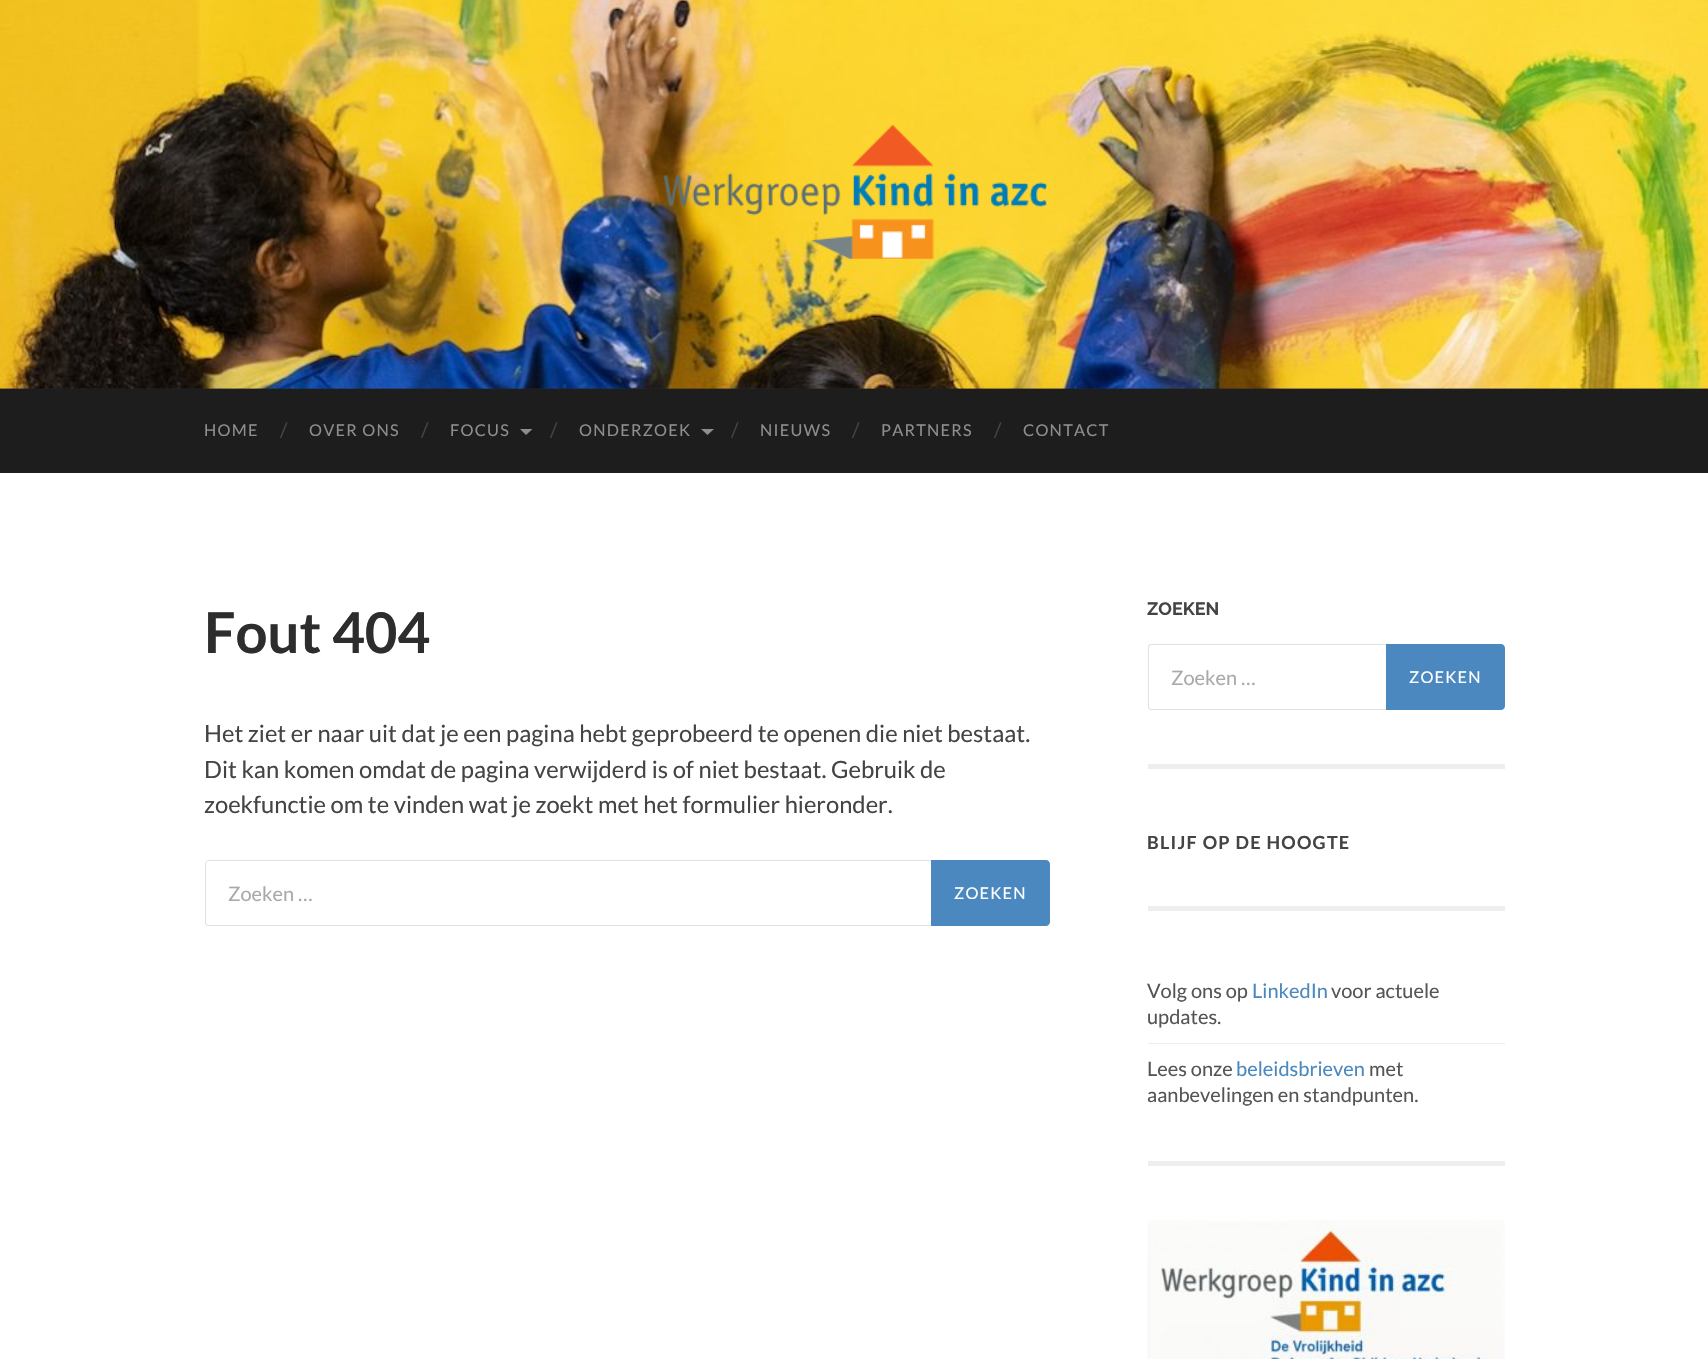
static SkFont makeFont(const char* family, int weight, float size, bool italic = false) {
  SkFontStyle style(weight, SkFontStyle::kNormal_Width,
    italic ? SkFontStyle::kItalic_Slant : SkFontStyle::kUpright_Slant);
  SkFont result(fontMgr->matchFamilyStyle(family, style), size);
  result.setSubpixel(true);
  return result;
}

static void text(SkCanvas* c, const char* s, float x, float y, const SkFont& font, SkColor color) {
  SkPaint ink(SkColor4f::FromColor(color));
  ink.setAntiAlias(true);
  c->drawString(s, x, y, font, ink);
}

static void spacedText(SkCanvas* c, const char* s, float x, float y, const SkFont& font, const SkPaint& ink, float letter, float word) {
  std::vector<SkGlyphID> glyphs(font.countText(s, strlen(s), SkTextEncoding::kUTF8));
  std::vector<float> xs(glyphs.size());
  font.textToGlyphs(s, strlen(s), SkTextEncoding::kUTF8, glyphs);
  font.getXPos(glyphs, xs, x);
  float extra = 0;
  for (size_t i = 0; i < glyphs.size(); i++) {
    xs[i] += extra;
    extra += letter + word * (glyphs[i] == font.unicharToGlyph(' '));
  }
  c->drawTextBlob(SkTextBlob::MakeFromPosHGlyphs(glyphs, xs, y, font), 0, 0, ink);
}

static void box(SkCanvas* c, float l, float t, float r, float b, SkColor color) {
  SkPaint ink(SkColor4f::FromColor(color));
  ink.setAntiAlias(true);
  c->drawRect(SkRect::MakeLTRB(l, t, r, b), ink);
}

static void picture(SkCanvas* c, const char* path, float l, float t, float r, float b) {
  auto image = SkImages::DeferredFromEncodedData(SkData::MakeFromFileName(path));
  c->drawImageRect(image, SkRect::MakeLTRB(l, t, r, b), SkSamplingOptions());
}

void draw(SkCanvas* c) {
  SkPaint paint;
  paint.setAntiAlias(true);
  c->clear(0xffffffff);
  box(c, 0, 388, 1708, 389, 0xff262626);
  picture(c, "img_01.png", 0, 0, 1708, 389);
  picture(c, "img_02.png", 663, 125, 1047, 259);
  box(c, 0, 389, 1708, 473, 0xff1d1d1d);
  SkFont face1 = makeFont("Lato", 400, 16.25f);
  paint.setColor(0xff8e8e8e);
  spacedText(c, "HOME", 204, 436, face1, paint, 1.25f, 0);
  SkFont face2 = makeFont("Lato", 400, 20);
  text(c, "/", 280, 437, face2, 0xff444444);
  spacedText(c, "OVER ONS", 309, 436, face1, paint, 1.25f, 0);
  text(c, "/", 421, 437, face2, 0xff444444);
  spacedText(c, "FOCUS", 450, 436, face1, paint, 1.25f, 0);
  c->drawPath(SkPathBuilder().moveTo(520, 429).lineTo(532.5f, 429).lineTo(526, 435).close().detach(), paint);
  text(c, "/", 550, 437, face2, 0xff444444);
  spacedText(c, "ONDERZOEK", 579, 436, face1, paint, 1.25f, 0);
  c->drawPath(SkPathBuilder().moveTo(701, 429).lineTo(714, 429).lineTo(707.5f, 435).close().detach(), paint);
  text(c, "/", 731, 437, face2, 0xff444444);
  spacedText(c, "NIEUWS", 760, 436, face1, paint, 1.25f, 0);
  text(c, "/", 852, 437, face2, 0xff444444);
  spacedText(c, "PARTNERS", 881, 436, face1, paint, 1.25f, 0);
  text(c, "/", 994, 437, face2, 0xff444444);
  spacedText(c, "CONTACT", 1023, 436, face1, paint, 1.25f, 0);
  SkFont face3 = makeFont("Lato", 700, 56.25f);
  text(c, "Fout 404", 204, 653, face3, 0xff2d2d2d);
  SkFont face4 = makeFont("Lato", 400, 23.75f);
  text(c, "Het ziet er naar uit dat je een pagina hebt geprobeerd te openen die niet bestaat.", 204, 742, face4, 0xff444444);
  text(c, "Dit kan komen omdat de pagina verwijderd is of niet bestaat. Gebruik de", 204, 778, face4, 0xff444444);
  text(c, "zoekfunctie om te vinden wat je zoekt met het formulier hieronder.", 204, 813, face4, 0xff444444);
  paint.setColor(0xffe1e1e3);
  c->drawPath(SkPathBuilder(SkPathFillType::kEvenOdd).moveTo(209, 860).lineTo(931, 860).lineTo(931, 926).lineTo(209, 926).cubicTo(207, 926, 205, 925, 205, 922).lineTo(205, 864).cubicTo(205, 862, 207, 860, 209, 860).close().moveTo(209, 861).lineTo(931, 861).lineTo(931, 925).lineTo(209, 925).cubicTo(207, 925, 206, 924, 206, 922).lineTo(206, 864).cubicTo(206, 862, 207, 861, 209, 861).close().detach(), paint);
  text(c, "Zoeken …", 228, 901, face2, 0xffa9a9a9);
  paint.setColor(0xff4a88bf);
  c->drawPath(SkPathBuilder().moveTo(931, 860).lineTo(1046, 860).cubicTo(1048, 860, 1050, 862, 1050, 864).lineTo(1050, 922).cubicTo(1050, 924, 1048, 926, 1046, 926).lineTo(931, 926).close().detach(), paint);
  paint.setColor(0xffffffff);
  spacedText(c, "ZOEKEN", 954, 899, face1, paint, 1.25f, 0);
  box(c, 1148, 764, 1505, 769, 0xffeeeeee);
  SkFont face5 = makeFont("Raleway", 100, 18);
  text(c, "ZOEKEN", 1147, 615, face5, 0xff444444);
  paint.setColor(0xffe1e1e3);
  c->drawPath(SkPathBuilder(SkPathFillType::kEvenOdd).moveTo(1151, 644).lineTo(1386, 644).lineTo(1386, 710).lineTo(1151, 710).cubicTo(1149, 710, 1148, 708, 1148, 706).lineTo(1148, 648).cubicTo(1148, 645, 1149, 644, 1151, 644).close().moveTo(1151, 645).lineTo(1386, 645).lineTo(1386, 709).lineTo(1151, 709).cubicTo(1150, 709, 1149, 708, 1149, 706).lineTo(1149, 648).cubicTo(1149, 646, 1150, 645, 1151, 645).close().detach(), paint);
  text(c, "Zoeken …", 1171, 685, face2, 0xffa9a9a9);
  paint.setColor(0xff4a88bf);
  c->drawPath(SkPathBuilder().moveTo(1386, 644).lineTo(1501, 644).cubicTo(1503, 644, 1505, 646, 1505, 648).lineTo(1505, 706).cubicTo(1505, 708, 1503, 710, 1501, 710).lineTo(1386, 710).close().detach(), paint);
  paint.setColor(0xffffffff);
  spacedText(c, "ZOEKEN", 1409, 683, face1, paint, 1.25f, 0);
  box(c, 1148, 906, 1505, 911, 0xffeeeeee);
  SkFont face6 = makeFont("Lato", 700, 18);
  paint.setColor(0xff444444);
  spacedText(c, "BLIJF OP DE HOOGTE", 1147, 849, face6, paint, 1.25f, 0);
  box(c, 1148, 1161, 1505, 1166, 0xffeeeeee);
  text(c, "Volg ons op", 1147, 998, face2, 0xff555555);
  text(c, "LinkedIn", 1252, 998, face2, 0xff4a88bf);
  text(c, "voor actuele", 1331, 998, face2, 0xff555555);
  text(c, "updates.", 1147, 1024, face2, 0xff555555);
  box(c, 1148, 1043, 1505, 1044, 0xffeeeeee);
  text(c, "Lees onze", 1147, 1076, face2, 0xff555555);
  text(c, "beleidsbrieven", 1236, 1076, face2, 0xff4a88bf);
  text(c, "met", 1369, 1076, face2, 0xff555555);
  text(c, "aanbevelingen en standpunten.", 1147, 1102, face2, 0xff555555);
  picture(c, "img_03.png", 1147, 1220, 1505, 1359);
}
